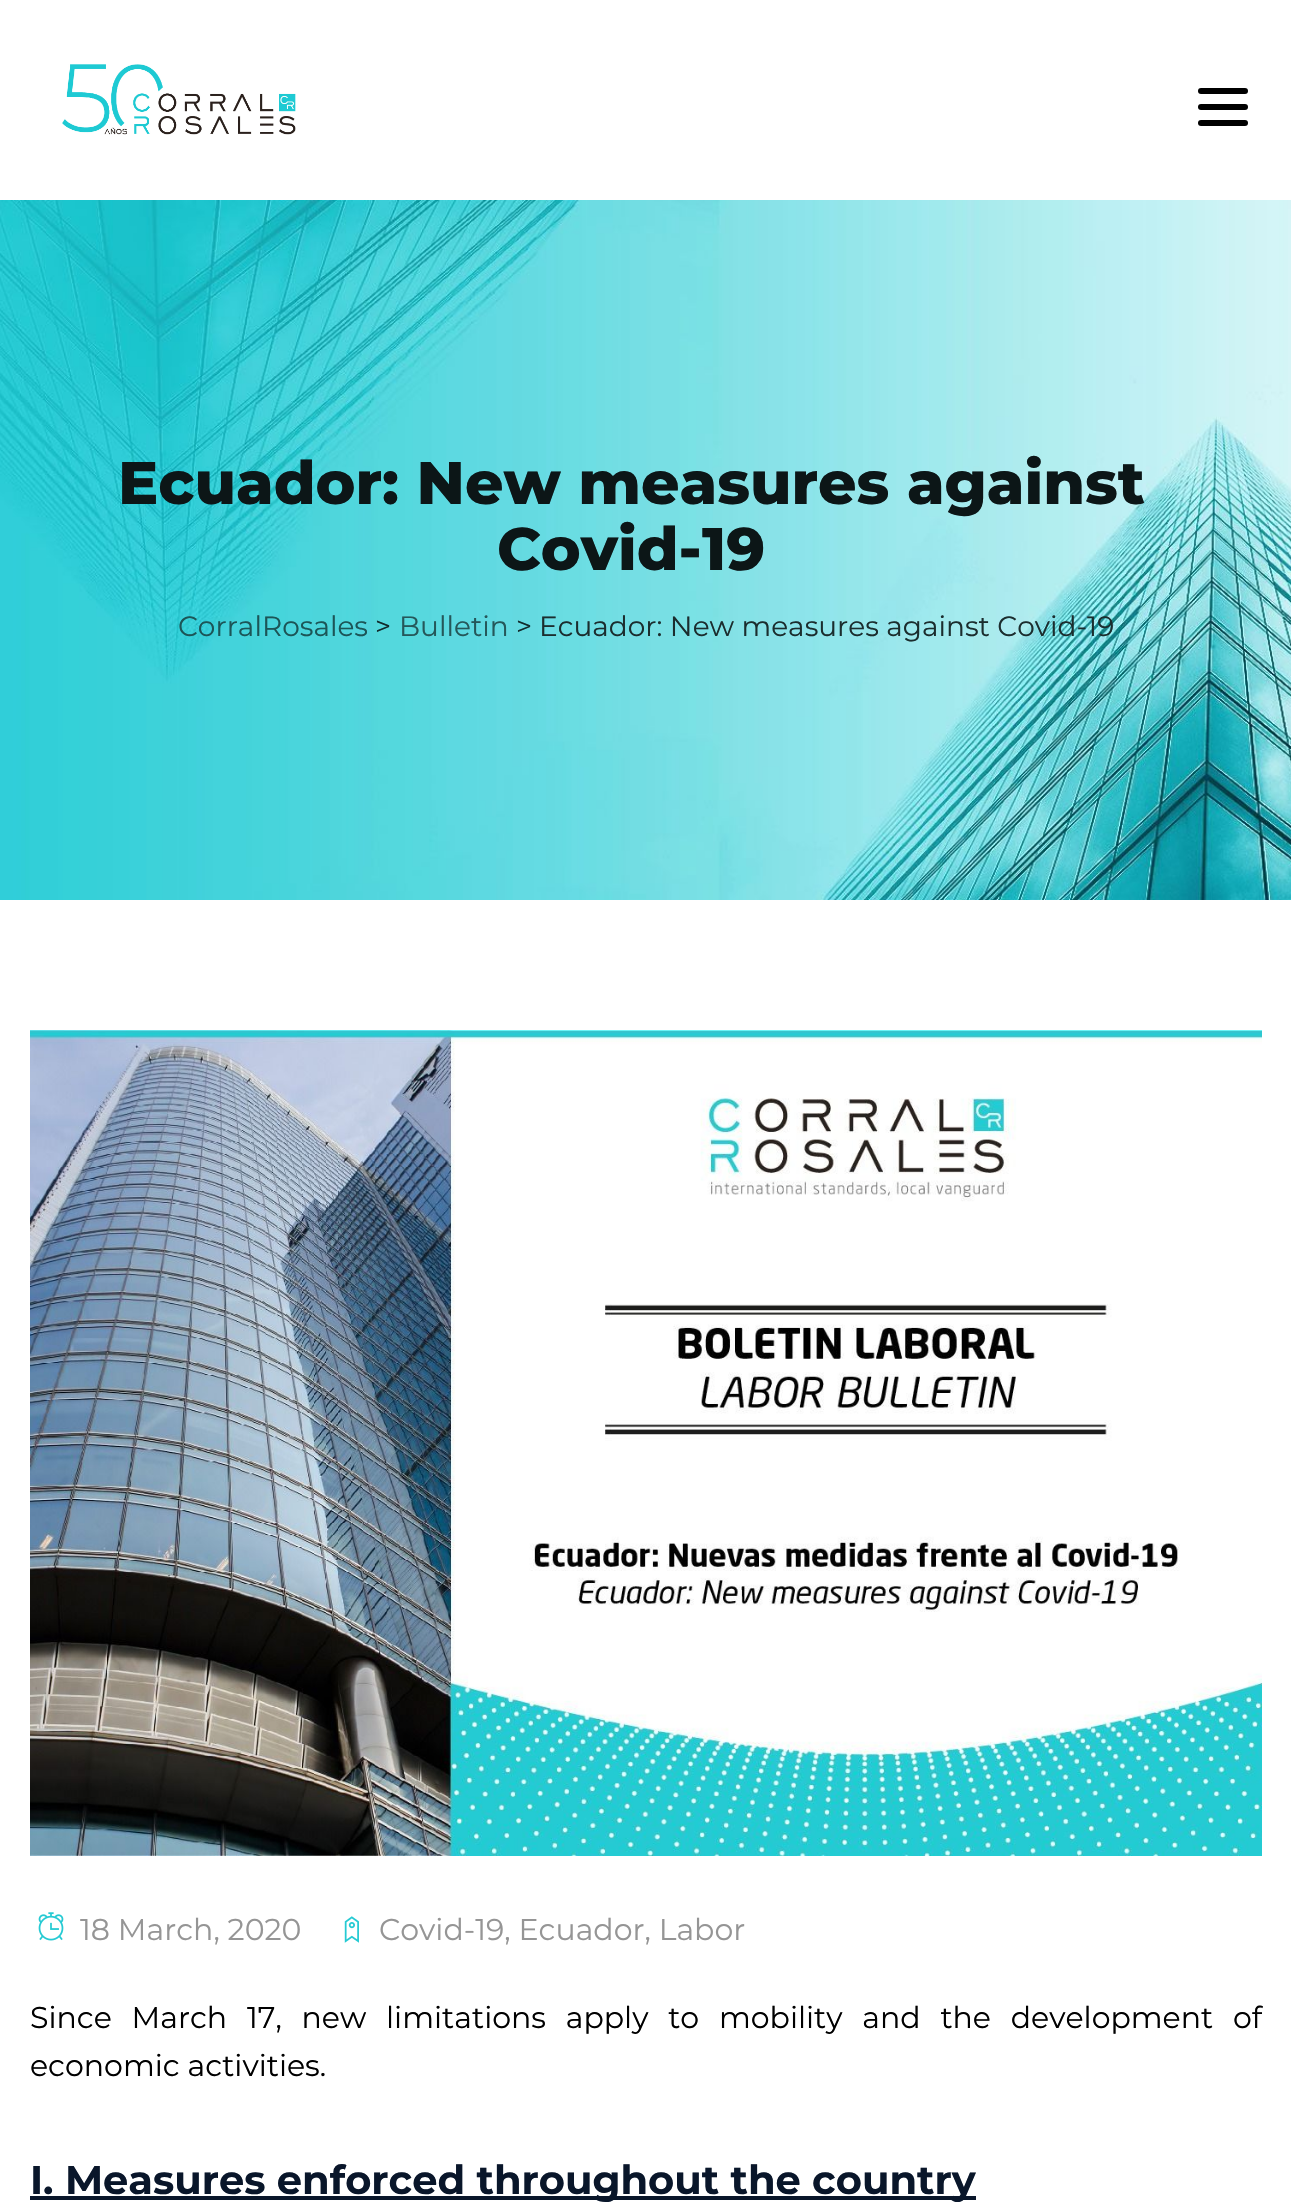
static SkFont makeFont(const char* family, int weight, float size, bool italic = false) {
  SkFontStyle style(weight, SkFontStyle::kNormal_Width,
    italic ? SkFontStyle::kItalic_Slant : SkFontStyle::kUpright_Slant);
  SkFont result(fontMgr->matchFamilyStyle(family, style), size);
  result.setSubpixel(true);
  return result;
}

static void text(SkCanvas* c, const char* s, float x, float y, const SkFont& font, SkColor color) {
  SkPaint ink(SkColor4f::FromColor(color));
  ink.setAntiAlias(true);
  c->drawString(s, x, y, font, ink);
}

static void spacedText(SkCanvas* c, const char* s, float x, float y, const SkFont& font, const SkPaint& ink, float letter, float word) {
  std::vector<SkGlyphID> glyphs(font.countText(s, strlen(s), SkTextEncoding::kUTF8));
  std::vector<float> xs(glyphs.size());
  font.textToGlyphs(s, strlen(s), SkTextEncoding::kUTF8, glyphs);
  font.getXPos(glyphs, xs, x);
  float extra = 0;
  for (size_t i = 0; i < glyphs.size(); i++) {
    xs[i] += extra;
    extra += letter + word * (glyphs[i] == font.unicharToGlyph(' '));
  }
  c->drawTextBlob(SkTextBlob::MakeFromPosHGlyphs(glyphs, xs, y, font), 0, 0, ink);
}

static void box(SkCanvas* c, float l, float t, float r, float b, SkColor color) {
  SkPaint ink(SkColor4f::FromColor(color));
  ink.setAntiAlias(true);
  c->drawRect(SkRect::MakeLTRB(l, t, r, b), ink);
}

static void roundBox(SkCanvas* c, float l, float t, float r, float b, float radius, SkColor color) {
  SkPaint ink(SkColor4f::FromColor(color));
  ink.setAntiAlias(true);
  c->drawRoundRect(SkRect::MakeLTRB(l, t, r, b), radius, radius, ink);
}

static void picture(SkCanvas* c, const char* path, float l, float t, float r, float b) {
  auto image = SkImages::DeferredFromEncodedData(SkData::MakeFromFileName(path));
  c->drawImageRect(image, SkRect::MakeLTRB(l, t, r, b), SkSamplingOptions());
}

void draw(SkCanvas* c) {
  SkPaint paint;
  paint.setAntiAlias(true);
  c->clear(0xffffffff);
  picture(c, "img_01.png", 62, 64, 296, 135);
  roundBox(c, 1198, 104, 1248, 110, 3, 0xff000000);
  roundBox(c, 1198, 88, 1248, 94, 3, 0xff000000);
  roundBox(c, 1198, 120, 1248, 126, 3, 0xff000000);
  picture(c, "img_02.png", 0, 200, 1291, 900);
  SkFont face1 = makeFont("Montserrat", 800, 60);
  text(c, "Ecuador: New measures against", 118, 504, face1, 0xff0c1617);
  text(c, "Covid-19", 497, 570, face1, 0xff0c1617);
  SkFont face2 = makeFont("Montserrat", 400, 28);
  text(c, "CorralRosales", 178, 636, face2, 0xff1c5557);
  text(c, ">", 375, 636, face2, 0xff112b2c);
  text(c, "Bulletin", 399, 636, face2, 0xff25575a);
  text(c, ">", 516, 636, face2, 0xff112b2c);
  text(c, "Ecuador: New measures against Covid-19", 539, 636, face2, 0xff1b2d2e);
  picture(c, "img_03.png", 30, 1030, 1262, 1856);
  picture(c, "img_04.png", 38, 1912, 64, 1941);
  SkFont face3 = makeFont("Montserrat", 400, 30);
  text(c, "18 March, 2020", 80, 1940, face3, 0xff959595);
  picture(c, "img_05.png", 344, 1916, 359, 1943);
  text(c, "Covid-19, Ecuador, Labor", 379, 1940, face3, 0xff959595);
  paint.setColor(0xff000000);
  spacedText(c, "Since March 17, new limitations apply to mobility and the development of", 30, 2028, face3, paint, 0, 11.9f);
  text(c, "economic activities.", 30, 2076, face3, 0xff000000);
  box(c, 30, 2196, 976, 2200, 0xff09162a);
  SkFont face4 = makeFont("Montserrat", 700, 40);
  text(c, "I. Measures enforced throughout the country", 30, 2194, face4, 0xff09162a);
}
